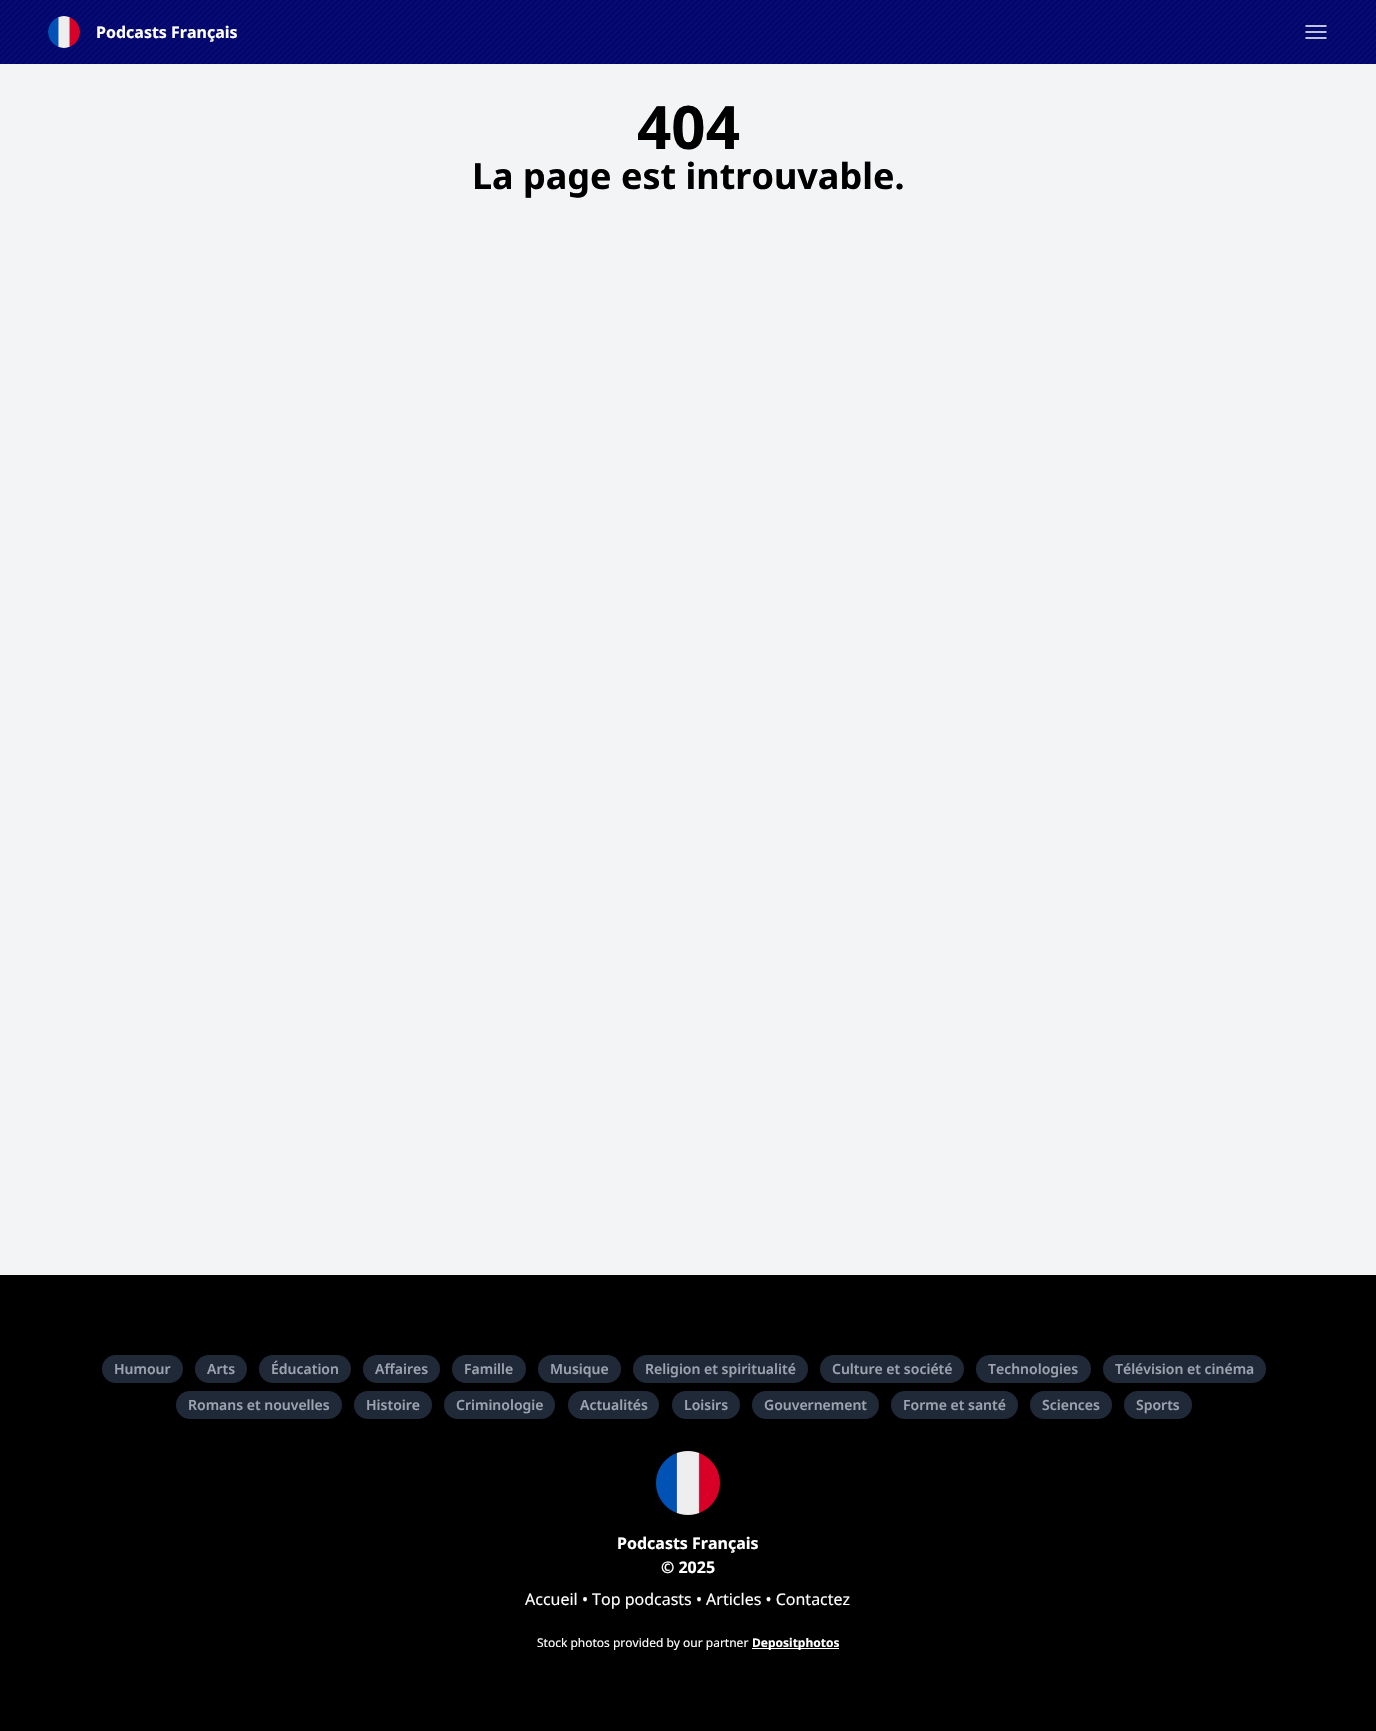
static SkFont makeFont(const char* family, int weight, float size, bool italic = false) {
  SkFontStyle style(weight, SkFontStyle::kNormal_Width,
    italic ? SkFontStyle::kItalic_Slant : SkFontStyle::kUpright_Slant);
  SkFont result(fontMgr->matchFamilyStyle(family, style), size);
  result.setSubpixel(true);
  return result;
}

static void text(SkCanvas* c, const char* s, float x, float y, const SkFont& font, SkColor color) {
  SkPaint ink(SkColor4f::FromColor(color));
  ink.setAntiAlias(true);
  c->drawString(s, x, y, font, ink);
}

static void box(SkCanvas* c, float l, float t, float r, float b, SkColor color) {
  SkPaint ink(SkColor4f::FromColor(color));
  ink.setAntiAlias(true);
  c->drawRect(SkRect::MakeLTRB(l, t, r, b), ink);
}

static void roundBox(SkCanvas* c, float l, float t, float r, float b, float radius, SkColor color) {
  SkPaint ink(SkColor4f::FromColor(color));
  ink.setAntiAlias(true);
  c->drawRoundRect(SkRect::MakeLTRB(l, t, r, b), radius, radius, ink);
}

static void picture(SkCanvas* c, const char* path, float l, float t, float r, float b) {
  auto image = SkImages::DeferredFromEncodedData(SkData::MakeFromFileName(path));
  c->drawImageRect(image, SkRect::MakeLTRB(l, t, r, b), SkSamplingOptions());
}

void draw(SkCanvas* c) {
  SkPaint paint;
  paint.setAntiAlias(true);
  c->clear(0xfff3f4f6);
  box(c, 0, 0, 1376, 64, 0xff02066d);
  picture(c, "img_01.png", 0, 0, 1376, 64);
  picture(c, "img_02.png", 48, 16, 80, 48);
  SkFont face1 = makeFont("Noto Sans", 700, 16);
  text(c, "Podcasts Français", 96, 38, face1, 0xffffffff);
  paint.setStyle(SkPaint::kStroke_Style);
  paint.setStrokeWidth(1.5f);
  paint.setStrokeCap(SkPaint::kRound_Cap);
  paint.setStrokeJoin(SkPaint::kRound_Join);
  paint.setColor(0xffffffff);
  c->drawPath(SkPathBuilder().moveTo(1306, 38).lineTo(1326, 38).moveTo(1306, 32).lineTo(1326, 32).moveTo(1306, 26).lineTo(1326, 26).detach(), paint);
  SkFont face2 = makeFont("Noto Sans", 700, 60);
  text(c, "404", 637, 149, face2, 0xff000000);
  SkFont face3 = makeFont("Noto Sans", 700, 36);
  text(c, "La page est introuvable.", 472, 189, face3, 0xff000000);
  box(c, 0, 1275, 1376, 1731, 0xff000000);
  roundBox(c, 102, 1355, 183, 1383, 14, 0xff1f2937);
  SkFont face4 = makeFont("Noto Sans", 600, 14);
  text(c, "Humour", 114, 1374, face4, 0xff9ca3af);
  roundBox(c, 195, 1355, 247, 1383, 14, 0xff1f2937);
  text(c, "Arts", 207, 1374, face4, 0xff9ca3af);
  roundBox(c, 259, 1355, 351, 1383, 14, 0xff1f2937);
  text(c, "Éducation", 271, 1374, face4, 0xff9ca3af);
  roundBox(c, 363, 1355, 440, 1383, 14, 0xff1f2937);
  text(c, "Affaires", 375, 1374, face4, 0xff9ca3af);
  roundBox(c, 452, 1355, 526, 1383, 14, 0xff1f2937);
  text(c, "Famille", 464, 1374, face4, 0xff9ca3af);
  roundBox(c, 538, 1355, 621, 1383, 14, 0xff1f2937);
  text(c, "Musique", 550, 1374, face4, 0xff9ca3af);
  roundBox(c, 633, 1355, 808, 1383, 14, 0xff1f2937);
  text(c, "Religion et spiritualité", 645, 1374, face4, 0xff9ca3af);
  roundBox(c, 820, 1355, 964, 1383, 14, 0xff1f2937);
  text(c, "Culture et société", 832, 1374, face4, 0xff9ca3af);
  roundBox(c, 976, 1355, 1091, 1383, 14, 0xff1f2937);
  text(c, "Technologies", 988, 1374, face4, 0xff9ca3af);
  roundBox(c, 1103, 1355, 1266, 1383, 14, 0xff1f2937);
  text(c, "Télévision et cinéma", 1115, 1374, face4, 0xff9ca3af);
  roundBox(c, 176, 1391, 342, 1419, 14, 0xff1f2937);
  text(c, "Romans et nouvelles", 188, 1410, face4, 0xff9ca3af);
  roundBox(c, 354, 1391, 432, 1419, 14, 0xff1f2937);
  text(c, "Histoire", 366, 1410, face4, 0xff9ca3af);
  roundBox(c, 444, 1391, 555, 1419, 14, 0xff1f2937);
  text(c, "Criminologie", 456, 1410, face4, 0xff9ca3af);
  roundBox(c, 568, 1391, 659, 1419, 14, 0xff1f2937);
  text(c, "Actualités", 580, 1410, face4, 0xff9ca3af);
  roundBox(c, 672, 1391, 740, 1419, 14, 0xff1f2937);
  text(c, "Loisirs", 684, 1410, face4, 0xff9ca3af);
  roundBox(c, 752, 1391, 879, 1419, 14, 0xff1f2937);
  text(c, "Gouvernement", 764, 1410, face4, 0xff9ca3af);
  roundBox(c, 891, 1391, 1018, 1419, 14, 0xff1f2937);
  text(c, "Forme et santé", 903, 1410, face4, 0xff9ca3af);
  roundBox(c, 1030, 1391, 1112, 1419, 14, 0xff1f2937);
  text(c, "Sciences", 1042, 1410, face4, 0xff9ca3af);
  roundBox(c, 1124, 1391, 1192, 1419, 14, 0xff1f2937);
  text(c, "Sports", 1136, 1410, face4, 0xff9ca3af);
  picture(c, "img_03.png", 656, 1451, 720, 1515);
  text(c, "Podcasts Français", 617, 1549, face1, 0xffffffff);
  text(c, "© 2025", 661, 1573, face1, 0xffffffff);
  SkFont face5 = makeFont("Noto Sans", 400, 16);
  text(c, "Accueil • Top podcasts • Articles • Contactez", 525, 1605, face5, 0xffffffff);
  SkFont face6 = makeFont("Noto Sans", 400, 12);
  text(c, "Stock photos provided by our partner", 537, 1647, face6, 0xffffffff);
  box(c, 752, 1648, 839, 1649, 0xffffffff);
  SkFont face7 = makeFont("Noto Sans", 700, 12);
  text(c, "Depositphotos", 752, 1647, face7, 0xffffffff);
}
